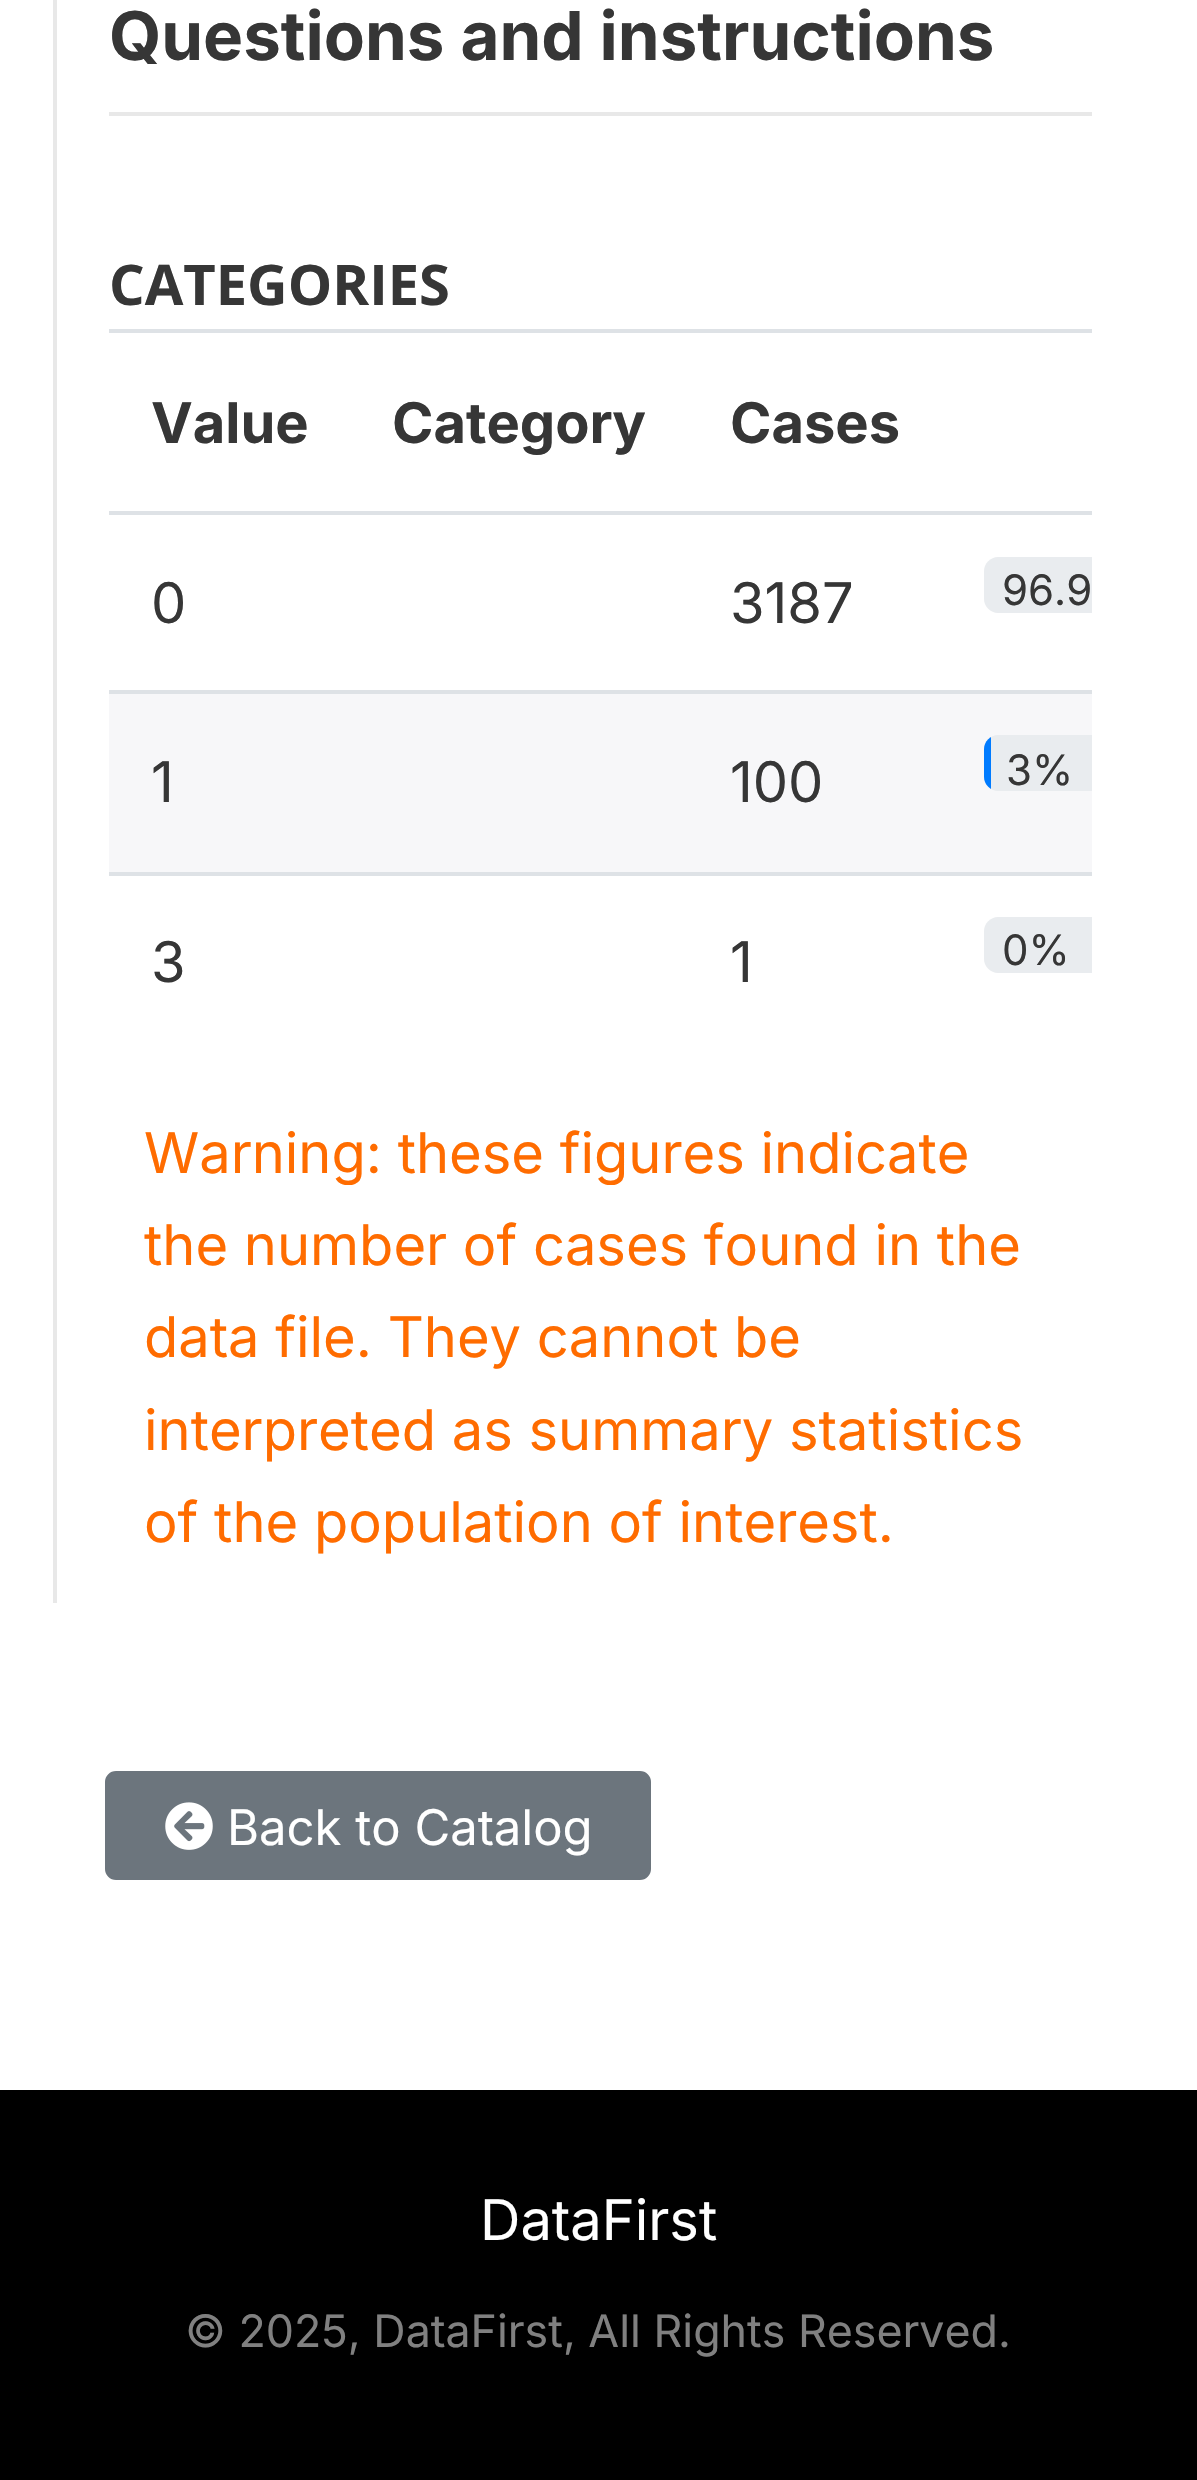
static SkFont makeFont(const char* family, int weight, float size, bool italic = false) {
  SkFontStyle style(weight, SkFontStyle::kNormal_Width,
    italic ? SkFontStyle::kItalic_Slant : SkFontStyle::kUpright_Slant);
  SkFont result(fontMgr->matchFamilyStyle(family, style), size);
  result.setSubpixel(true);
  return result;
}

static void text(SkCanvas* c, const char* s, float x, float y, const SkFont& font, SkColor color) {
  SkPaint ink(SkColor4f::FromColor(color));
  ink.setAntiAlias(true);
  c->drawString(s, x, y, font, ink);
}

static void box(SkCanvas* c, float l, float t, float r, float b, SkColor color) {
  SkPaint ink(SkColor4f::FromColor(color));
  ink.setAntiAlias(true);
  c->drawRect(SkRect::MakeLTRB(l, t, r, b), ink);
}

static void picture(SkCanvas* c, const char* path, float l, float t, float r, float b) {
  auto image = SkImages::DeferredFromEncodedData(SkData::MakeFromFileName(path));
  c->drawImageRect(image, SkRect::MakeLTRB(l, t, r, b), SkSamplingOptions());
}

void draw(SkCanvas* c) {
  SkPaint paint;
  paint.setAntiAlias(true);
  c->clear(0xffffffff);
  box(c, 53, 0, 57, 1603, 0xffe8e8e8);
  box(c, 109, 112, 1092, 116, 0xffe8e8e8);
  SkFont face1 = makeFont("Inter", 700, 67.25f);
  text(c, "Questions and instructions", 109, 60, face1, 0xff363636);
  SkFont face2 = makeFont("Open Sans", 700, 56);
  text(c, "CATEGORIES", 109, 305, face2, 0xff363636);
  box(c, 109, 329, 1092, 333, 0xffdee2e6);
  SkFont face3 = makeFont("Inter", 700, 56);
  text(c, "Value", 151, 443, face3, 0xff363636);
  text(c, "Category", 392, 443, face3, 0xff363636);
  text(c, "Cases", 730, 443, face3, 0xff363636);
  SkFont face4 = makeFont("Inter", 400, 56);
  text(c, "0", 151, 623, face4, 0xff363636);
  text(c, "3187", 730, 623, face4, 0xff363636);
  box(c, 109, 511, 1092, 515, 0xffdee2e6);
  paint.setColor(0xffe9ecef);
  c->drawPath(SkPathBuilder().moveTo(998, 557).lineTo(1092, 557).lineTo(1092, 613).lineTo(998, 613).cubicTo(990.5f, 613, 984, 606.5f, 984, 599).lineTo(984, 571).cubicTo(984, 563.5f, 990.5f, 557, 998, 557).close().detach(), paint);
  SkFont face5 = makeFont("Inter", 400, 42);
  text(c, "96.9", 1002, 605, face5, 0xff363636);
  box(c, 109, 694, 1092, 872, 0xfff7f7f9);
  text(c, "1", 151, 802, face4, 0xff363636);
  text(c, "100", 730, 802, face4, 0xff363636);
  box(c, 109, 690, 1092, 694, 0xffdee2e6);
  c->drawPath(SkPathBuilder().moveTo(998, 735).lineTo(1092, 735).lineTo(1092, 791).lineTo(998, 791).cubicTo(990.5f, 791, 984, 784.5f, 984, 777).lineTo(984, 749).cubicTo(984, 741.5f, 990.5f, 735, 998, 735).close().detach(), paint);
  c->save();
  c->clipPath(SkPathBuilder().moveTo(998, 735).lineTo(1120, 735).cubicTo(1127.5f, 735, 1134, 741.5f, 1134, 749).lineTo(1134, 777).cubicTo(1134, 784.5f, 1127.5f, 791, 1120, 791).lineTo(998, 791).cubicTo(990.5f, 791, 984, 784.5f, 984, 777).lineTo(984, 749).cubicTo(984, 741.5f, 990.5f, 735, 998, 735).close().detach(), true);
  box(c, 984, 735, 991, 791, 0xff007bff);
  c->restore();
  text(c, "3%", 1006, 785, face5, 0xff363636);
  text(c, "3", 151, 982, face4, 0xff363636);
  text(c, "1", 730, 982, face4, 0xff363636);
  box(c, 109, 872, 1092, 876, 0xffdee2e6);
  c->drawPath(SkPathBuilder().moveTo(998, 917).lineTo(1092, 917).lineTo(1092, 973).lineTo(998, 973).cubicTo(990.5f, 973, 984, 966.5f, 984, 959).lineTo(984, 931).cubicTo(984, 923.5f, 990.5f, 917, 998, 917).close().detach(), paint);
  text(c, "0%", 1002, 965, face5, 0xff363636);
  text(c, "Warning: these figures indicate", 144, 1173, face4, 0xffff6c00);
  text(c, "the number of cases found in the", 144, 1265, face4, 0xffff6c00);
  text(c, "data file. They cannot be", 144, 1357, face4, 0xffff6c00);
  text(c, "interpreted as summary statistics", 144, 1450, face4, 0xffff6c00);
  text(c, "of the population of interest.", 144, 1542, face4, 0xffff6c00);
  paint.setColor(0xff6c757d);
  c->drawRoundRect(SkRect::MakeLTRB(107, 1773, 649, 1878), 9, 9, paint);
  paint.setStyle(SkPaint::kStroke_Style);
  paint.setStrokeWidth(4);
  c->drawRoundRect(SkRect::MakeLTRB(107, 1773, 649, 1878), 9, 9, paint);
  picture(c, "img_01.png", 165, 1802, 213, 1850);
  SkFont face6 = makeFont("Inter", 400, 49);
  text(c, "Back to Catalog", 227, 1845, face6, 0xffffffff);
  box(c, 0, 2090, 1197, 2480, 0xff000000);
  text(c, "DataFirst", 480, 2240, face4, 0xffffffff);
  SkFont face7 = makeFont("Inter", 400, 44.75f);
  text(c, "© 2025, DataFirst, All Rights Reserved.", 185, 2347, face7, 0xff808080);
}
